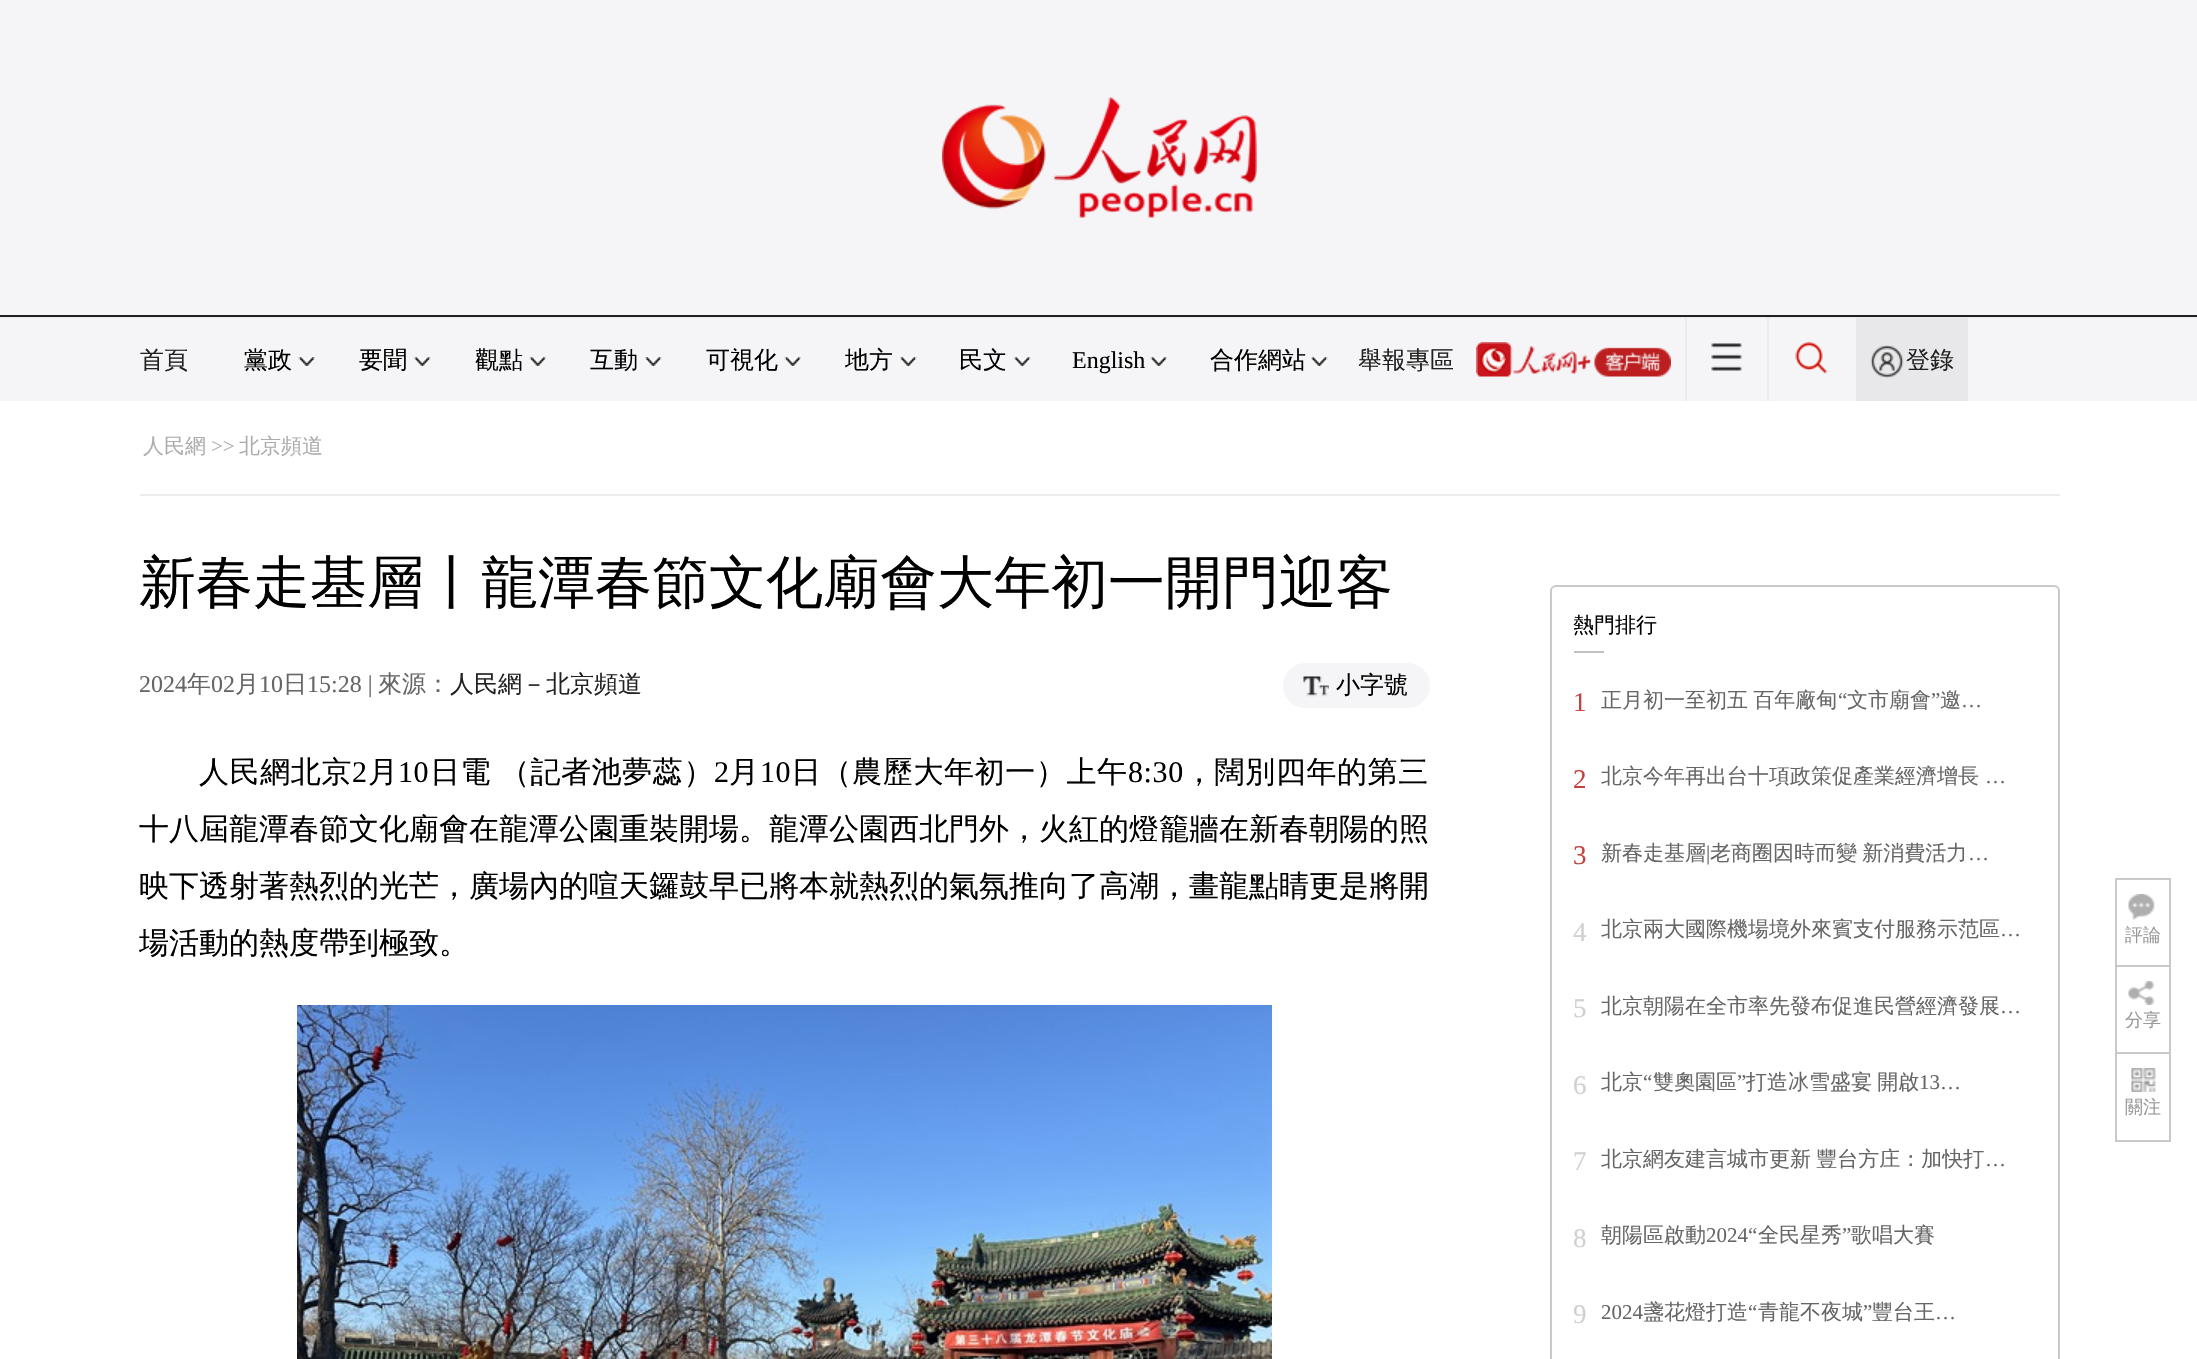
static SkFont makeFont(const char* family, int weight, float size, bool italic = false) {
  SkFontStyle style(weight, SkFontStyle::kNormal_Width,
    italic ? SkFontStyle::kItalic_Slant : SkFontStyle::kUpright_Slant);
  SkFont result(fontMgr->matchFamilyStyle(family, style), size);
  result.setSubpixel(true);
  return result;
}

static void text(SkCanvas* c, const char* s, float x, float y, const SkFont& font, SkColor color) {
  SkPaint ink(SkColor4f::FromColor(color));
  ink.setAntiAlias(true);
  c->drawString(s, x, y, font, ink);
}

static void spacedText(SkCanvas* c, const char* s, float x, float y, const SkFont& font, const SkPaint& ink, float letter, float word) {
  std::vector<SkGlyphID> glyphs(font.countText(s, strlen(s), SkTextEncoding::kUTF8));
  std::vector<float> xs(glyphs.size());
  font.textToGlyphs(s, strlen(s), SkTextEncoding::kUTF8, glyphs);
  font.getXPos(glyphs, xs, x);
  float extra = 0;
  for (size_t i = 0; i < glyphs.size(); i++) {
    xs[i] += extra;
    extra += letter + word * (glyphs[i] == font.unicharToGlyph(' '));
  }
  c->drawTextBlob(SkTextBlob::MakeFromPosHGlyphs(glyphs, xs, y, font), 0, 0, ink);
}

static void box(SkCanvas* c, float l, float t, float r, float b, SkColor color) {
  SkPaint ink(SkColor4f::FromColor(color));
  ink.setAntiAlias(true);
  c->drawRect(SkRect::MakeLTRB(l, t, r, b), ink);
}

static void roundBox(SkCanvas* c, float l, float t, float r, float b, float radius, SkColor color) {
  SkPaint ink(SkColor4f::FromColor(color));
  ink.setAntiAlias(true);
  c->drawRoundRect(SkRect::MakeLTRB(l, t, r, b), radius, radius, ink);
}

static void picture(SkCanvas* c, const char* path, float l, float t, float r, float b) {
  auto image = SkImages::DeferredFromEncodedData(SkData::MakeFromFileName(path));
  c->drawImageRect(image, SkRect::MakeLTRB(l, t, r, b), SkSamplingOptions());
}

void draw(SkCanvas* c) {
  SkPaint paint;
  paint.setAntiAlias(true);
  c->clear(0xffffffff);
  box(c, 0, 0, 2197, 315, 0xfff5f5f7);
  box(c, 0, 315, 2197, 317, 0xff212121);
  picture(c, "img_01.png", 942, 97, 1257, 218);
  box(c, 0, 317, 2197, 318, 0xffe9e9e9);
  box(c, 0, 318, 2197, 401, 0xfff5f5f7);
  SkFont face1 = makeFont("WenQuanYi Zen Hei", 500, 24);
  text(c, "首頁", 140, 368, face1, 0xff212121);
  text(c, "黨政", 244, 368, face1, 0xff000000);
  picture(c, "img_02.png", 298, 357, 315, 366);
  text(c, "要聞", 359, 368, face1, 0xff000000);
  picture(c, "img_03.png", 414, 357, 431, 366);
  text(c, "觀點", 475, 368, face1, 0xff000000);
  picture(c, "img_02.png", 529, 357, 546, 366);
  text(c, "互動", 590, 368, face1, 0xff000000);
  picture(c, "img_04.png", 645, 357, 662, 366);
  text(c, "可視化", 706, 368, face1, 0xff000000);
  picture(c, "img_05.png", 784, 357, 801, 366);
  text(c, "地方", 845, 368, face1, 0xff000000);
  picture(c, "img_04.png", 900, 357, 917, 366);
  text(c, "民文", 959, 368, face1, 0xff000000);
  picture(c, "img_04.png", 1014, 357, 1031, 366);
  SkFont face2 = makeFont("Liberation Serif", 400, 24);
  text(c, "English", 1072, 368, face2, 0xff000000);
  picture(c, "img_02.png", 1150, 357, 1167, 366);
  text(c, "合作網站", 1210, 368, face1, 0xff000000);
  picture(c, "img_04.png", 1311, 357, 1328, 366);
  text(c, "舉報專區", 1358, 368, face1, 0xff212121);
  picture(c, "img_06.png", 1476, 342, 1671, 377);
  box(c, 1767, 318, 1769, 401, 0xffebebed);
  box(c, 1685, 318, 1687, 401, 0xffebebed);
  picture(c, "img_07.png", 1711, 343, 1742, 371);
  picture(c, "img_08.png", 1795, 342, 1828, 374);
  box(c, 1856, 318, 1968, 401, 0xffe8e8ea);
  picture(c, "img_09.png", 1870, 345, 1904, 378);
  text(c, "登錄", 1906, 368, face1, 0xff212121);
  box(c, 140, 494, 2060, 496, 0xffececec);
  SkFont face3 = makeFont("WenQuanYi Zen Hei", 500, 21);
  text(c, "人民網", 143, 453, face3, 0xffadadad);
  SkFont face4 = makeFont("Liberation Serif", 400, 21);
  text(c, ">>", 211, 453, face4, 0xffadadad);
  text(c, "北京頻道", 239, 453, face3, 0xffadadad);
  SkFont face5 = makeFont("WenQuanYi Zen Hei", 500, 57);
  text(c, "新春走基層丨龍潭春節文化廟會大年初一開門迎客", 139, 602, face5, 0xff000000);
  text(c, "2024", 139, 692, face2, 0xff666666);
  text(c, "年", 187, 692, face1, 0xff666666);
  text(c, "02", 211, 692, face2, 0xff666666);
  text(c, "月", 235, 692, face1, 0xff666666);
  text(c, "10", 259, 692, face2, 0xff666666);
  text(c, "日", 283, 692, face1, 0xff666666);
  text(c, "15:28 |", 307, 692, face2, 0xff666666);
  text(c, "來源：", 378, 692, face1, 0xff666666);
  text(c, "人民網－北京頻道", 450, 692, face1, 0xff212121);
  roundBox(c, 1283, 663, 1430, 708, 22.5f, 0xfff5f5f7);
  picture(c, "img_10.png", 1303, 676, 1329, 697);
  text(c, "小字號", 1336, 693, face1, 0xff000000);
  SkFont face6 = makeFont("WenQuanYi Zen Hei", 500, 30);
  paint.setColor(0xff000000);
  spacedText(c, "人民網北京", 199, 782, face6, paint, 0.6f, 0);
  SkFont face7 = makeFont("Liberation Serif", 400, 30);
  spacedText(c, "2", 352, 782, face7, paint, 0.6f, 0);
  spacedText(c, "月", 368, 782, face6, paint, 0.6f, 0);
  spacedText(c, "10", 398, 782, face7, paint, 0.6f, 0);
  spacedText(c, "日電 （記者池夢蕊）", 430, 782, face6, paint, 0.6f, -1);
  spacedText(c, "2", 714, 782, face7, paint, 0.6f, 0);
  spacedText(c, "月", 729, 782, face6, paint, 0.6f, 0);
  spacedText(c, "10", 760, 782, face7, paint, 0.6f, 0);
  spacedText(c, "日（農歷大年初一）上午", 791, 782, face6, paint, 0.6f, 0);
  spacedText(c, "8:30", 1128, 782, face7, paint, 0.6f, 0);
  spacedText(c, "，闊別四年的第三", 1184, 782, face6, paint, 0.6f, 0);
  text(c, "十八屆龍潭春節文化廟會在龍潭公園重裝開場。龍潭公園西北門外，火紅的燈籠牆在新春朝陽的照", 139, 839, face6, 0xff000000);
  text(c, "映下透射著熱烈的光芒，廣場內的喧天鑼鼓早已將本就熱烈的氣氛推向了高潮，畫龍點睛更是將開", 139, 896, face6, 0xff000000);
  text(c, "場活動的熱度帶到極致。", 139, 953, face6, 0xff000000);
  picture(c, "img_11.png", 297, 1005, 1272, 1359);
  paint.setStyle(SkPaint::kStroke_Style);
  paint.setStrokeWidth(2);
  paint.setColor(0xffc9c9c9);
  c->drawRoundRect(SkRect::MakeLTRB(1551, 586, 2059, 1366), 5, 5, paint);
  text(c, "熱門排行", 1573, 632, face3, 0xff000000);
  box(c, 1574, 651, 1604, 653, 0xffc1c1c1);
  SkFont face8 = makeFont("Liberation Serif", 400, 27);
  text(c, "1", 1573, 711, face8, 0xffc54242);
  paint.setStyle(SkPaint::kFill_Style);
  paint.setColor(0xff666666);
  spacedText(c, "正月初一至初五 百年廠甸", 1601, 707, face3, paint, 0, -1);
  text(c, "“", 1838, 707, face4, 0xff666666);
  text(c, "文市廟會", 1847, 707, face3, 0xff666666);
  text(c, "”", 1931, 707, face4, 0xff666666);
  text(c, "邀", 1940, 707, face3, 0xff666666);
  text(c, "…", 1961, 707, face4, 0xff666666);
  text(c, "2", 1573, 788, face8, 0xffc54242);
  text(c, "北京今年再出台十項政策促產業經濟增長", 1601, 783, face3, 0xff666666);
  text(c, "…", 1985, 783, face4, 0xff666666);
  text(c, "3", 1573, 864, face8, 0xffc54242);
  text(c, "新春走基層", 1601, 860, face3, 0xff666666);
  text(c, "|", 1706, 860, face4, 0xff666666);
  spacedText(c, "老商圈因時而變 新消費活力", 1710, 860, face3, paint, 0, -1);
  text(c, "…", 1968, 860, face4, 0xff666666);
  text(c, "4", 1573, 941, face8, 0xffd0d0d0);
  text(c, "北京兩大國際機場境外來賓支付服務示范區", 1601, 936, face3, 0xff666666);
  text(c, "…", 2000, 936, face4, 0xff666666);
  text(c, "5", 1573, 1017, face8, 0xffd0d0d0);
  text(c, "北京朝陽在全市率先發布促進民營經濟發展", 1601, 1013, face3, 0xff666666);
  text(c, "…", 2000, 1013, face4, 0xff666666);
  text(c, "6", 1573, 1094, face8, 0xffd0d0d0);
  text(c, "北京", 1601, 1089, face3, 0xff666666);
  text(c, "“", 1643, 1089, face4, 0xff666666);
  text(c, "雙奧園區", 1653, 1089, face3, 0xff666666);
  text(c, "”", 1737, 1089, face4, 0xff666666);
  spacedText(c, "打造冰雪盛宴 開啟", 1746, 1089, face3, paint, 0, -1);
  text(c, "13…", 1919, 1089, face4, 0xff666666);
  text(c, "7", 1573, 1170, face8, 0xffd0d0d0);
  spacedText(c, "北京網友建言城市更新 豐台方庄：加快打", 1601, 1166, face3, paint, 0, -1);
  text(c, "…", 1985, 1166, face4, 0xff666666);
  text(c, "8", 1573, 1247, face8, 0xffd0d0d0);
  text(c, "朝陽區啟動", 1601, 1242, face3, 0xff666666);
  text(c, "2024“", 1706, 1242, face4, 0xff666666);
  text(c, "全民星秀", 1758, 1242, face3, 0xff666666);
  text(c, "”", 1842, 1242, face4, 0xff666666);
  text(c, "歌唱大賽", 1851, 1242, face3, 0xff666666);
  text(c, "9", 1573, 1323, face8, 0xffd0d0d0);
  text(c, "2024", 1601, 1319, face4, 0xff666666);
  text(c, "盞花燈打造", 1643, 1319, face3, 0xff666666);
  text(c, "“", 1748, 1319, face4, 0xff666666);
  text(c, "青龍不夜城", 1758, 1319, face3, 0xff666666);
  text(c, "”", 1863, 1319, face4, 0xff666666);
  text(c, "豐台王", 1872, 1319, face3, 0xff666666);
  text(c, "…", 1935, 1319, face4, 0xff666666);
  c->save();
  c->clipRect(SkRect::MakeLTRB(2115, 878, 2171, 965));
  paint.setStyle(SkPaint::kStroke_Style);
  paint.setColor(0xffc9c9c9);
  c->drawRect(SkRect::MakeLTRB(2116, 879, 2170, 968), paint);
  c->restore();
  picture(c, "img_12.png", 2128, 894, 2155, 920);
  SkFont face9 = makeFont("WenQuanYi Zen Hei", 500, 18);
  text(c, "評論", 2125, 941, face9, 0xff999999);
  c->save();
  c->clipRect(SkRect::MakeLTRB(2115, 965, 2171, 1052));
  c->drawRect(SkRect::MakeLTRB(2116, 966, 2170, 1054), paint);
  c->restore();
  picture(c, "img_13.png", 2128, 981, 2155, 1005);
  text(c, "分享", 2125, 1026, face9, 0xff999999);
  c->drawRect(SkRect::MakeLTRB(2116, 1053, 2170, 1141), paint);
  picture(c, "img_14.png", 2131, 1068, 2156, 1092);
  text(c, "關注", 2125, 1113, face9, 0xff999999);
}
